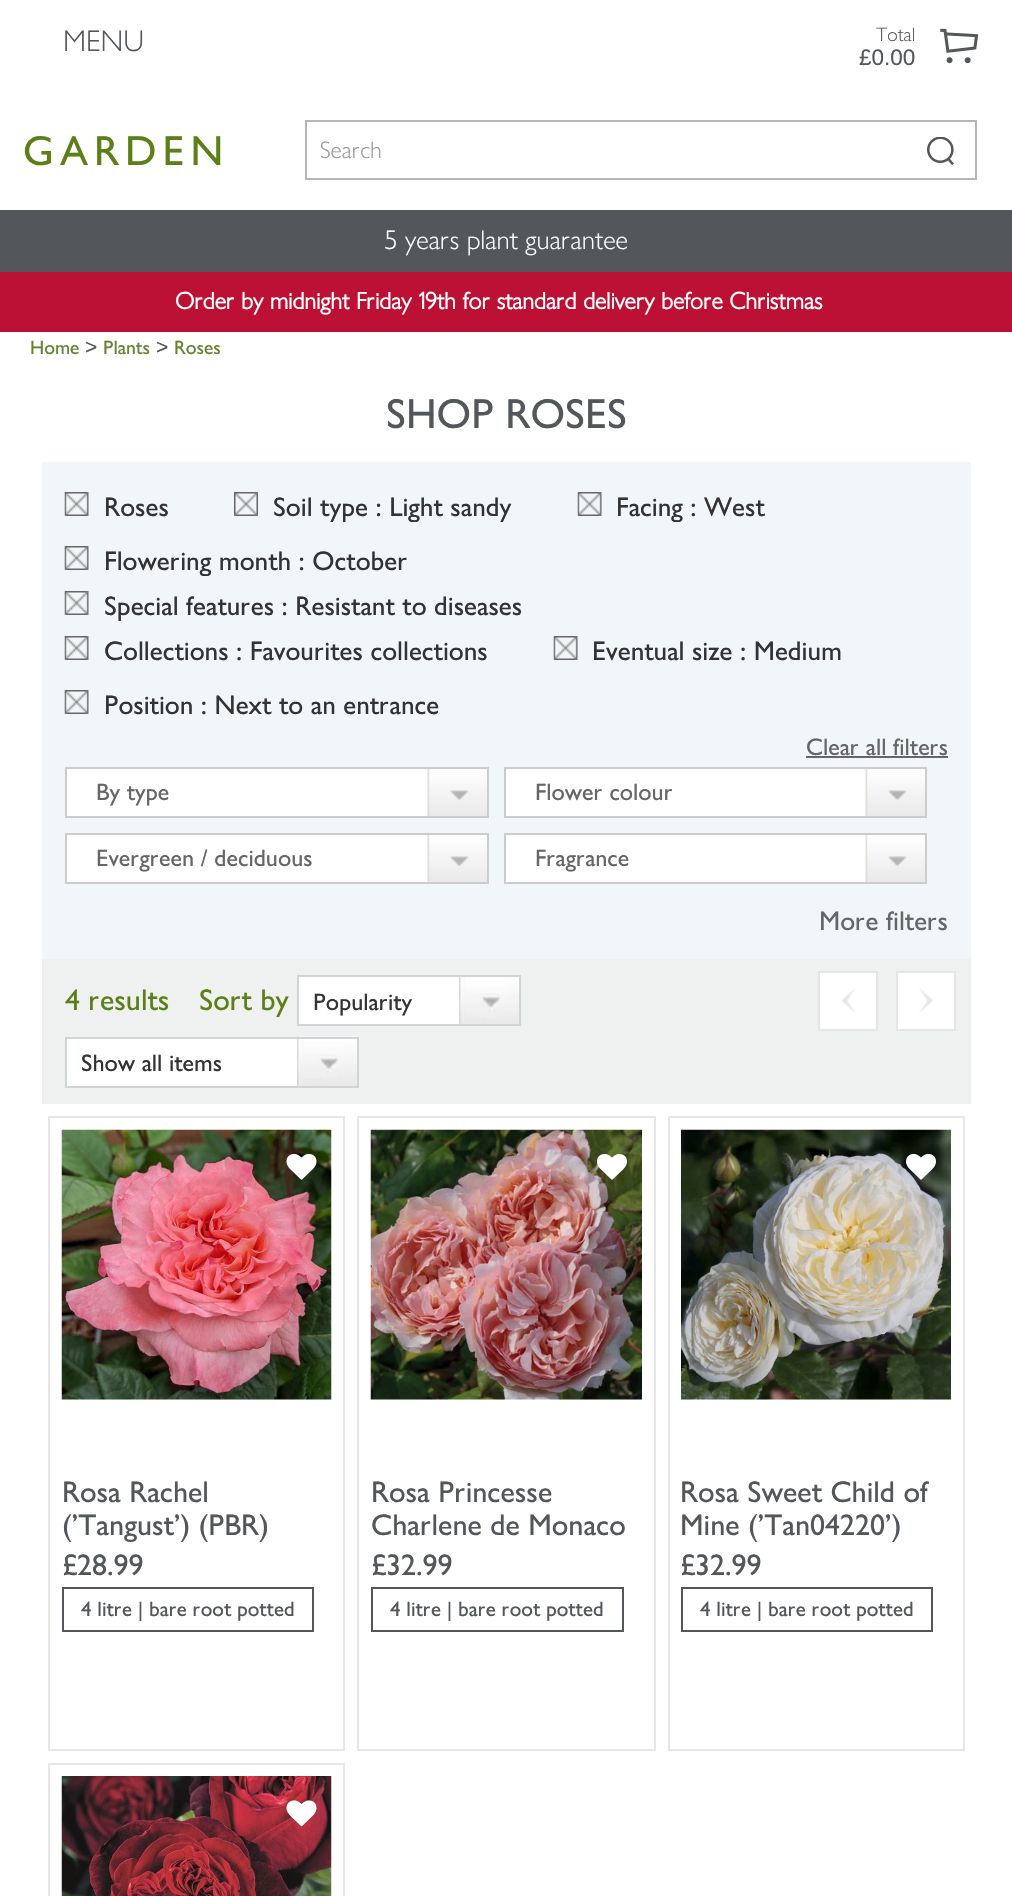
static SkFont makeFont(const char* family, int weight, float size, bool italic = false) {
  SkFontStyle style(weight, SkFontStyle::kNormal_Width,
    italic ? SkFontStyle::kItalic_Slant : SkFontStyle::kUpright_Slant);
  SkFont result(fontMgr->matchFamilyStyle(family, style), size);
  result.setSubpixel(true);
  return result;
}

static void text(SkCanvas* c, const char* s, float x, float y, const SkFont& font, SkColor color) {
  SkPaint ink(SkColor4f::FromColor(color));
  ink.setAntiAlias(true);
  c->drawString(s, x, y, font, ink);
}

static void spacedText(SkCanvas* c, const char* s, float x, float y, const SkFont& font, const SkPaint& ink, float letter, float word) {
  std::vector<SkGlyphID> glyphs(font.countText(s, strlen(s), SkTextEncoding::kUTF8));
  std::vector<float> xs(glyphs.size());
  font.textToGlyphs(s, strlen(s), SkTextEncoding::kUTF8, glyphs);
  font.getXPos(glyphs, xs, x);
  float extra = 0;
  for (size_t i = 0; i < glyphs.size(); i++) {
    xs[i] += extra;
    extra += letter + word * (glyphs[i] == font.unicharToGlyph(' '));
  }
  c->drawTextBlob(SkTextBlob::MakeFromPosHGlyphs(glyphs, xs, y, font), 0, 0, ink);
}

static void box(SkCanvas* c, float l, float t, float r, float b, SkColor color) {
  SkPaint ink(SkColor4f::FromColor(color));
  ink.setAntiAlias(true);
  c->drawRect(SkRect::MakeLTRB(l, t, r, b), ink);
}

static void picture(SkCanvas* c, const char* path, float l, float t, float r, float b) {
  auto image = SkImages::DeferredFromEncodedData(SkData::MakeFromFileName(path));
  c->drawImageRect(image, SkRect::MakeLTRB(l, t, r, b), SkSamplingOptions());
}

void draw(SkCanvas* c) {
  SkPaint paint;
  paint.setAntiAlias(true);
  c->clear(0xffffffff);
  SkFont face1 = makeFont("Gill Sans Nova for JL", 300, 30);
  text(c, "MENU", 63, 51, face1, 0xff53565a);
  paint.setStyle(SkPaint::kStroke_Style);
  paint.setStrokeWidth(2);
  paint.setColor(0xffb5b6b8);
  c->drawRect(SkRect::MakeLTRB(306, 121, 976, 179), paint);
  SkFont face2 = makeFont("Gill Sans Nova for JL", 300, 24);
  text(c, "Search", 320, 158, face2, 0xff999999);
  picture(c, "img_01.png", 927, 137, 954, 166);
  picture(c, "img_02.png", 940, 28, 979, 64);
  SkFont face3 = makeFont("Gill Sans Nova for JL", 300, 19.5f);
  text(c, "Total", 876, 41, face3, 0xff53565a);
  SkFont face4 = makeFont("Liberation Sans", 400, 22.5f);
  text(c, "£0.00", 859, 65, face4, 0xff53565a);
  SkFont face5 = makeFont("Gill Sans Nova for JL", 500, 42);
  paint.setStyle(SkPaint::kFill_Style);
  paint.setColor(0xff5c8018);
  spacedText(c, "GARDEN", 23, 165, face5, paint, 6, 0);
  box(c, 0, 210, 1012, 272, 0xff53565b);
  SkFont face6 = makeFont("Gill Sans Nova for JL", 300, 27);
  text(c, "5 years plant guarantee", 384, 249, face6, 0xffffffff);
  box(c, 0, 272, 1012, 332, 0xffbd1035);
  SkFont face7 = makeFont("Gill Sans Nova for JL", 700, 24);
  text(c, "Order by midnight Friday 19th for standard delivery before Christmas", 175, 309, face7, 0xffffffff);
  SkFont face8 = makeFont("Gill Sans Nova for JL", 500, 19.5f);
  text(c, "Home", 30, 354, face8, 0xff65832e);
  SkFont face9 = makeFont("Liberation Sans", 400, 21);
  text(c, ">", 85, 354, face9, 0xff53565a);
  text(c, "Plants", 103, 354, face8, 0xff65832e);
  text(c, ">", 156, 354, face9, 0xff53565a);
  text(c, "Roses", 174, 354, face8, 0xff65832e);
  text(c, "SHOP ROSES", 386, 428, face5, 0xff53565a);
  box(c, 42, 462, 971, 959, 0xfff1f6f8);
  picture(c, "img_03.png", 64, 492, 89, 516);
  SkFont face10 = makeFont("Gill Sans Nova for JL", 500, 27);
  text(c, "Roses", 104, 516, face10, 0xff333333);
  picture(c, "img_04.png", 234, 492, 258, 516);
  c->save();
  c->clipRect(SkRect::MakeLTRB(234, 492, 527, 522));
  text(c, "Soil type : Light sandy", 273, 516, face10, 0xff333333);
  c->restore();
  picture(c, "img_05.png", 577, 492, 602, 516);
  c->save();
  c->clipRect(SkRect::MakeLTRB(578, 492, 780, 522));
  text(c, "Facing : West", 616, 516, face10, 0xff333333);
  c->restore();
  picture(c, "img_03.png", 64, 546, 89, 570);
  c->save();
  c->clipRect(SkRect::MakeLTRB(65, 546, 422, 576));
  text(c, "Flowering month : October", 104, 570, face10, 0xff333333);
  c->restore();
  picture(c, "img_03.png", 64, 591, 89, 615);
  c->save();
  c->clipRect(SkRect::MakeLTRB(65, 591, 537, 621));
  text(c, "Special features : Resistant to diseases", 104, 615, face10, 0xff333333);
  c->restore();
  picture(c, "img_03.png", 64, 636, 89, 660);
  text(c, "Collections : Favourites collections", 104, 660, face10, 0xff333333);
  picture(c, "img_05.png", 553, 636, 578, 660);
  text(c, "Eventual size : Medium", 592, 660, face10, 0xff333333);
  picture(c, "img_03.png", 64, 690, 89, 714);
  text(c, "Position : Next to an entrance", 104, 714, face10, 0xff333333);
  SkFont face11 = makeFont("Gill Sans Nova for JL", 500, 24);
  text(c, "Clear all filters", 806, 755, face11, 0xff666666);
  box(c, 806, 756, 948, 758, 0xff666666);
  box(c, 67, 769, 428, 816, 0xffffffff);
  picture(c, "img_06.png", 427, 769, 487, 816);
  paint.setStyle(SkPaint::kStroke_Style);
  paint.setColor(0xffcccccc);
  c->drawRect(SkRect::MakeLTRB(66, 768, 488, 817), paint);
  text(c, "By type", 96, 800, face11, 0xff666666);
  box(c, 506, 769, 866, 816, 0xffffffff);
  picture(c, "img_07.png", 865, 769, 925, 816);
  c->drawRect(SkRect::MakeLTRB(505, 768, 926, 817), paint);
  text(c, "Flower colour", 535, 800, face11, 0xff666666);
  box(c, 67, 835, 428, 882, 0xffffffff);
  picture(c, "img_06.png", 427, 835, 487, 882);
  c->drawRect(SkRect::MakeLTRB(66, 834, 488, 883), paint);
  text(c, "Evergreen / deciduous", 96, 866, face11, 0xff666666);
  box(c, 506, 835, 866, 882, 0xffffffff);
  picture(c, "img_07.png", 865, 835, 925, 882);
  c->drawRect(SkRect::MakeLTRB(505, 834, 926, 883), paint);
  text(c, "Fragrance", 535, 866, face11, 0xff666666);
  text(c, "More filters", 819, 930, face10, 0xff666666);
  box(c, 42, 959, 971, 1104, 0xffeff0f0);
  SkFont face12 = makeFont("Gill Sans Nova for JL", 500, 30);
  text(c, "4 results", 65, 1010, face12, 0xff5c8018);
  text(c, "Sort by", 199, 1010, face12, 0xff5c8018);
  box(c, 299, 977, 459, 1024, 0xffffffff);
  picture(c, "img_08.png", 459, 977, 519, 1024);
  paint.setColor(0xffd1d4d6);
  c->drawRect(SkRect::MakeLTRB(298, 976, 520, 1025), paint);
  text(c, "Popularity", 313, 1010, face11, 0xff333333);
  box(c, 67, 1039, 297, 1086, 0xffffffff);
  picture(c, "img_09.png", 297, 1036, 357, 1086);
  c->drawRect(SkRect::MakeLTRB(66, 1038, 358, 1087), paint);
  text(c, "Show all items", 81, 1071, face11, 0xff333333);
  box(c, 820, 973, 876, 1029, 0xffffffff);
  picture(c, "img_10.png", 841, 988, 855, 1013);
  paint.setColor(0xffe5e5e5);
  c->drawRect(SkRect::MakeLTRB(819, 972, 877, 1030), paint);
  box(c, 898, 973, 954, 1029, 0xffffffff);
  picture(c, "img_11.png", 919, 988, 933, 1013);
  c->drawRect(SkRect::MakeLTRB(897, 972, 955, 1030), paint);
  paint.setColor(0xffe7e7e7);
  c->drawRect(SkRect::MakeLTRB(49, 1117, 344, 1750), paint);
  picture(c, "img_12.png", 61, 1129, 332, 1400);
  picture(c, "img_13.png", 286, 1153, 317, 1180);
  text(c, "Rosa Rachel", 62, 1502, face12, 0xff53565a);
  text(c, "('Tangust') (PBR)", 62, 1535, face12, 0xff53565a);
  text(c, "£28.99", 62, 1575, face12, 0xff53565a);
  paint.setColor(0xff53565a);
  c->drawRect(SkRect::MakeLTRB(63, 1588, 313, 1631), paint);
  SkFont face13 = makeFont("Gill Sans Nova for JL", 500, 21);
  text(c, "4 litre | bare root potted", 81, 1616, face13, 0xff53565a);
  paint.setColor(0xffe7e7e7);
  c->drawRect(SkRect::MakeLTRB(358, 1117, 655, 1750), paint);
  picture(c, "img_14.png", 370, 1129, 642, 1400);
  picture(c, "img_15.png", 597, 1153, 627, 1180);
  text(c, "Rosa Princesse", 371, 1502, face12, 0xff53565a);
  text(c, "Charlene de Monaco", 371, 1535, face12, 0xff53565a);
  text(c, "£32.99", 371, 1575, face12, 0xff53565a);
  paint.setColor(0xff53565a);
  c->drawRect(SkRect::MakeLTRB(372, 1588, 623, 1631), paint);
  text(c, "4 litre | bare root potted", 390, 1616, face13, 0xff53565a);
  paint.setColor(0xffe7e7e7);
  c->drawRect(SkRect::MakeLTRB(669, 1117, 964, 1750), paint);
  picture(c, "img_16.png", 681, 1129, 951, 1400);
  picture(c, "img_17.png", 906, 1153, 936, 1180);
  text(c, "Rosa Sweet Child of", 680, 1502, face12, 0xff53565a);
  text(c, "Mine ('Tan04220')", 680, 1535, face12, 0xff53565a);
  text(c, "£32.99", 680, 1575, face12, 0xff53565a);
  paint.setColor(0xff53565a);
  c->drawRect(SkRect::MakeLTRB(682, 1588, 932, 1631), paint);
  text(c, "4 litre | bare root potted", 700, 1616, face13, 0xff53565a);
  paint.setColor(0xffe7e7e7);
  c->drawRect(SkRect::MakeLTRB(49, 1764, 344, 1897), paint);
  picture(c, "img_18.png", 61, 1776, 332, 1896);
  picture(c, "img_19.png", 286, 1800, 317, 1827);
}
